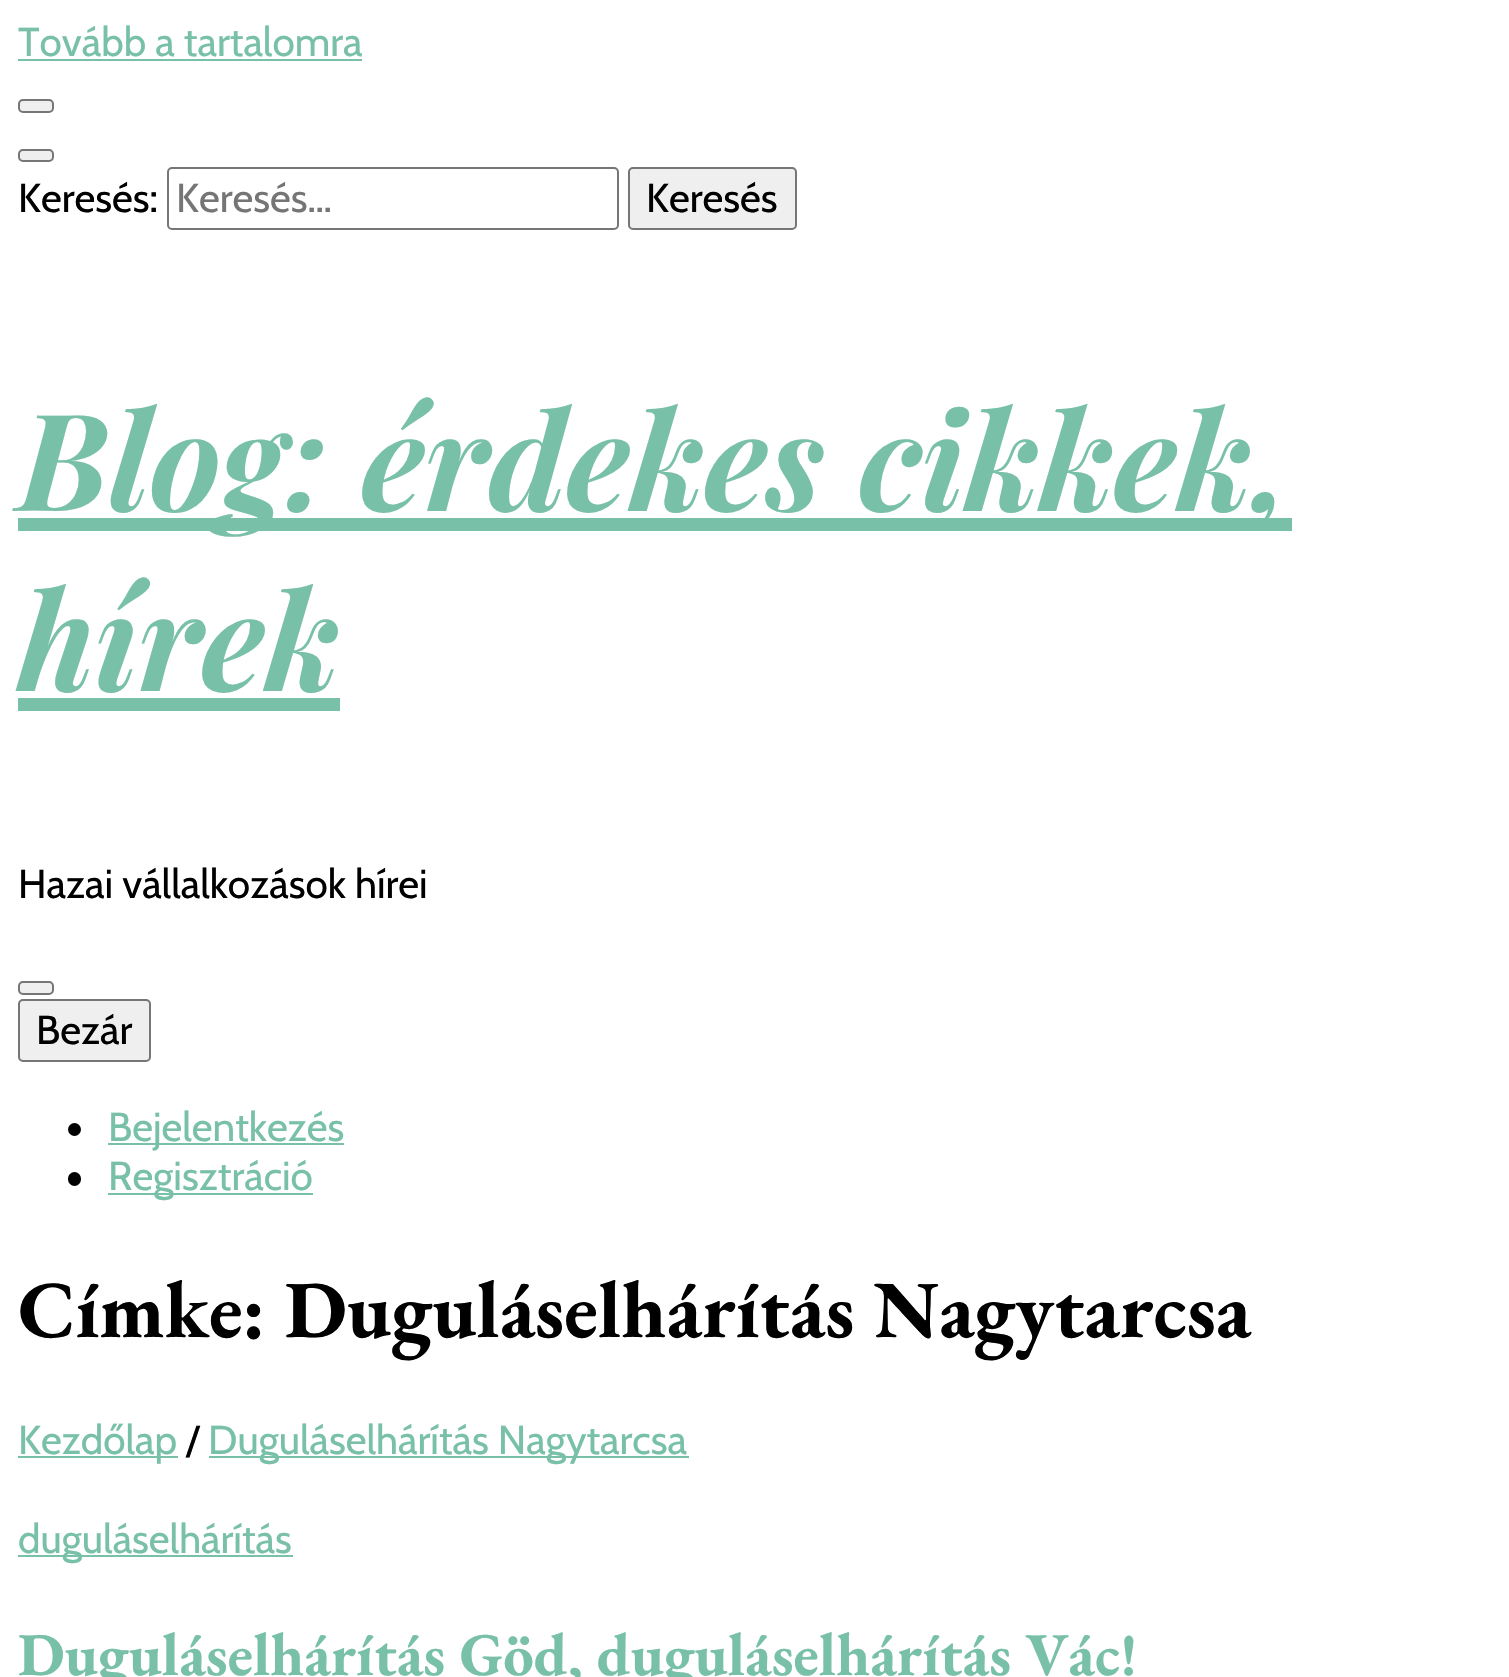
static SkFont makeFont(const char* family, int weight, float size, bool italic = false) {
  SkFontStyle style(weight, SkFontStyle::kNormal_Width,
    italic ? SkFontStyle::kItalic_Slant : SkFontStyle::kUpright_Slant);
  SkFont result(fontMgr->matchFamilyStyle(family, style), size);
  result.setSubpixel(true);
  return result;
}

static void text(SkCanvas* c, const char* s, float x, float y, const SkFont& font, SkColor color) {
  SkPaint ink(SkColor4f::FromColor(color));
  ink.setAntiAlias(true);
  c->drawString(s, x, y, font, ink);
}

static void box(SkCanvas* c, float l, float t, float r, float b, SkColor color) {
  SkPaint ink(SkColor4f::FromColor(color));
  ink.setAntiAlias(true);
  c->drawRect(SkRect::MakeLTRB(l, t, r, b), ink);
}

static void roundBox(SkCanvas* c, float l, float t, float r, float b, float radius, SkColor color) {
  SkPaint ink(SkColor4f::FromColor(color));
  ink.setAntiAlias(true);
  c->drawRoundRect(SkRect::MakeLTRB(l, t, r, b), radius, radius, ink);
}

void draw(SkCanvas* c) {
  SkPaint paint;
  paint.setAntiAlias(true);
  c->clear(0xffffffff);
  SkFont face1 = makeFont("Cabin", 400, 40.5f);
  text(c, "Tovább a tartalomra", 18, 56, face1, 0xff78c0a8);
  box(c, 18, 59, 362, 61, 0xff78c0a8);
  paint.setColor(0xffefefef);
  c->drawRoundRect(SkRect::MakeLTRB(19, 100, 53, 112), 4, 4, paint);
  paint.setStyle(SkPaint::kStroke_Style);
  paint.setStrokeWidth(2);
  paint.setColor(0xff767676);
  c->drawRoundRect(SkRect::MakeLTRB(19, 100, 53, 112), 4, 4, paint);
  paint.setStyle(SkPaint::kFill_Style);
  paint.setColor(0xffefefef);
  c->drawRoundRect(SkRect::MakeLTRB(19, 150, 53, 161), 4, 4, paint);
  paint.setStyle(SkPaint::kStroke_Style);
  paint.setColor(0xff767676);
  c->drawRoundRect(SkRect::MakeLTRB(19, 150, 53, 161), 4, 4, paint);
  text(c, "Keresés:", 18, 212, face1, 0xff000000);
  c->drawRoundRect(SkRect::MakeLTRB(168, 168, 618, 229), 4, 4, paint);
  text(c, "Keresés…", 176, 212, face1, 0xff757575);
  paint.setStyle(SkPaint::kFill_Style);
  paint.setColor(0xffefefef);
  c->drawRoundRect(SkRect::MakeLTRB(629, 168, 796, 229), 4, 4, paint);
  paint.setStyle(SkPaint::kStroke_Style);
  paint.setColor(0xff767676);
  c->drawRoundRect(SkRect::MakeLTRB(629, 168, 796, 229), 4, 4, paint);
  text(c, "Keresés", 646, 212, face1, 0xff000000);
  box(c, 18, 518, 1292, 531, 0xff78c0a8);
  SkFont face2 = makeFont("Playfair Display", 700, 135, true);
  text(c, "Blog: érdekes cikkek,", 18, 511, face2, 0xff78c0a8);
  text(c, "hírek", 18, 691, face2, 0xff78c0a8);
  box(c, 18, 698, 340, 711, 0xff78c0a8);
  text(c, "Hazai vállalkozások hírei", 18, 898, face1, 0xff000000);
  paint.setStyle(SkPaint::kFill_Style);
  paint.setColor(0xffefefef);
  c->drawRoundRect(SkRect::MakeLTRB(19, 982, 53, 994), 4, 4, paint);
  paint.setStyle(SkPaint::kStroke_Style);
  paint.setColor(0xff767676);
  c->drawRoundRect(SkRect::MakeLTRB(19, 982, 53, 994), 4, 4, paint);
  paint.setStyle(SkPaint::kFill_Style);
  paint.setColor(0xffefefef);
  c->drawRoundRect(SkRect::MakeLTRB(19, 1000, 150, 1061), 4, 4, paint);
  paint.setStyle(SkPaint::kStroke_Style);
  paint.setColor(0xff767676);
  c->drawRoundRect(SkRect::MakeLTRB(19, 1000, 150, 1061), 4, 4, paint);
  text(c, "Bezár", 36, 1044, face1, 0xff000000);
  paint.setStyle(SkPaint::kFill_Style);
  paint.setColor(0xff000000);
  c->drawCircle(74.5f, 1129.5f, 6.5f, paint);
  box(c, 108, 1143, 344, 1145, 0xff78c0a8);
  text(c, "Bejelentkezés", 108, 1141, face1, 0xff78c0a8);
  roundBox(c, 68, 1172, 81, 1186, 6.5f, 0xff000000);
  box(c, 108, 1193, 313, 1195, 0xff78c0a8);
  text(c, "Regisztráció", 108, 1190, face1, 0xff78c0a8);
  SkFont face3 = makeFont("EB Garamond", 700, 81);
  text(c, "Címke: Duguláselhárítás Nagytarcsa", 18, 1337, face3, 0xff000000);
  box(c, 18, 1456, 178, 1458, 0xff78c0a8);
  text(c, "Kezdőlap", 18, 1454, face1, 0xff78c0a8);
  text(c, "/", 186, 1454, face1, 0xff000000);
  box(c, 209, 1456, 689, 1458, 0xff78c0a8);
  text(c, "Duguláselhárítás Nagytarcsa", 208, 1454, face1, 0xff78c0a8);
  box(c, 18, 1555, 293, 1557, 0xff78c0a8);
  text(c, "duguláselhárítás", 18, 1553, face1, 0xff78c0a8);
  SkFont face4 = makeFont("EB Garamond", 700, 60.75f);
  text(c, "Duguláselhárítás Göd, duguláselhárítás Vác!", 18, 1675, face4, 0xff78c0a8);
}
